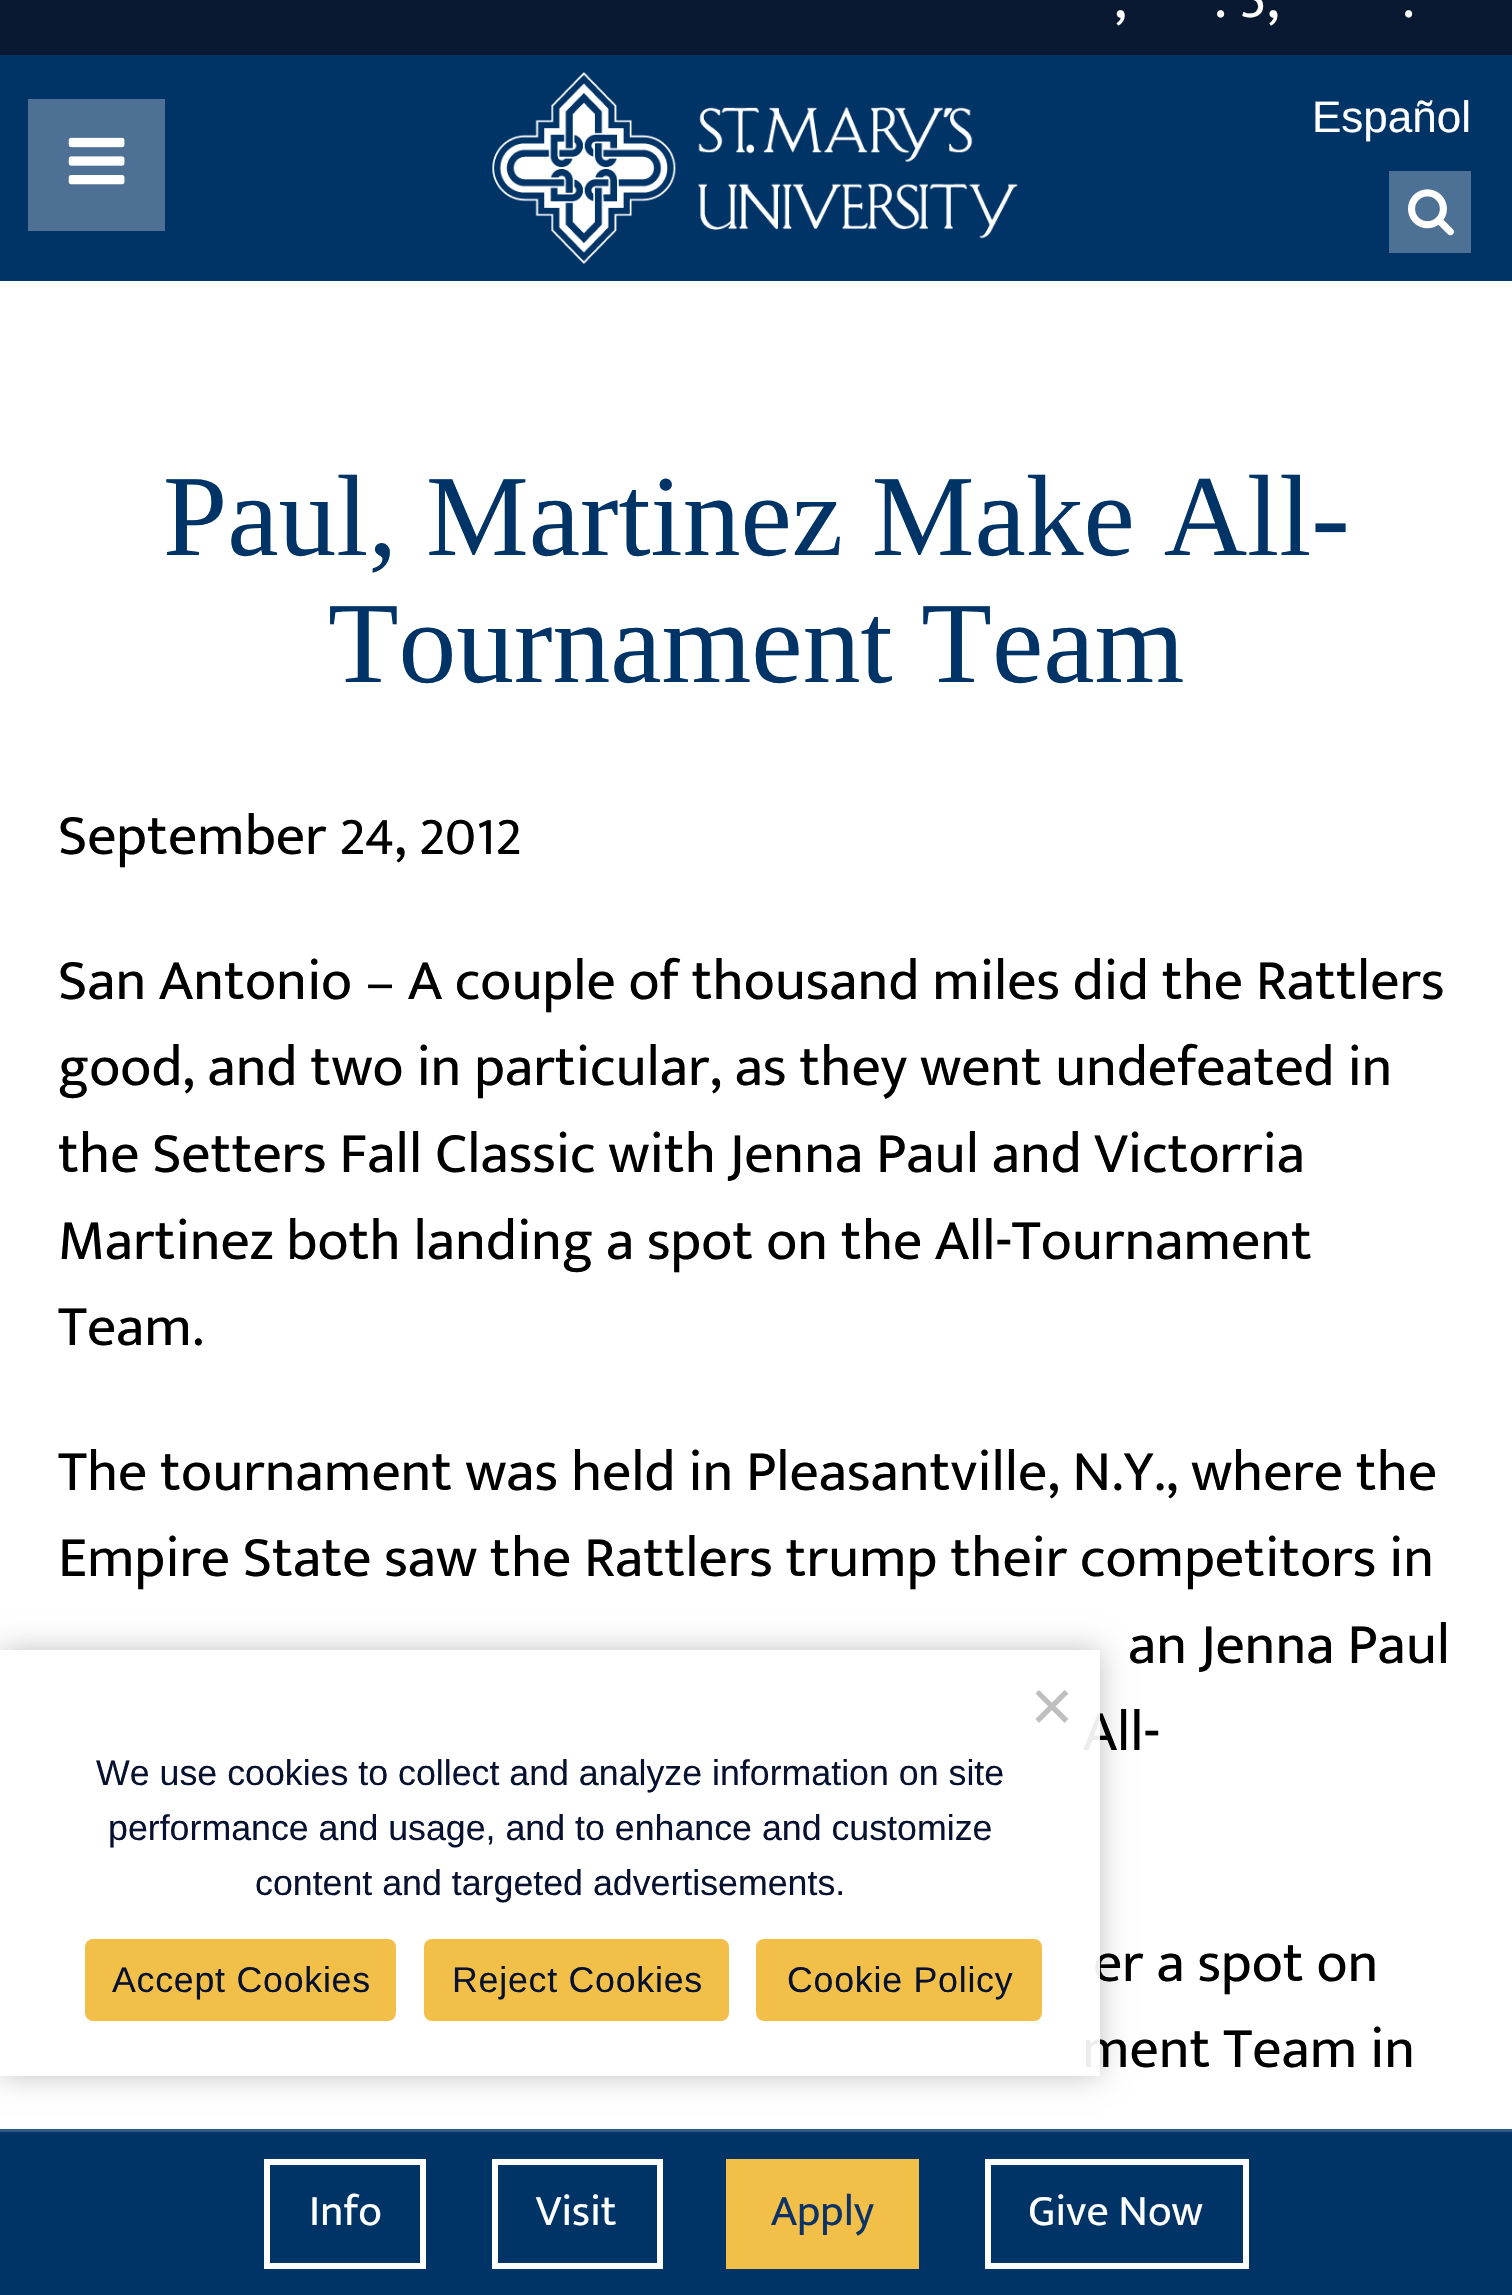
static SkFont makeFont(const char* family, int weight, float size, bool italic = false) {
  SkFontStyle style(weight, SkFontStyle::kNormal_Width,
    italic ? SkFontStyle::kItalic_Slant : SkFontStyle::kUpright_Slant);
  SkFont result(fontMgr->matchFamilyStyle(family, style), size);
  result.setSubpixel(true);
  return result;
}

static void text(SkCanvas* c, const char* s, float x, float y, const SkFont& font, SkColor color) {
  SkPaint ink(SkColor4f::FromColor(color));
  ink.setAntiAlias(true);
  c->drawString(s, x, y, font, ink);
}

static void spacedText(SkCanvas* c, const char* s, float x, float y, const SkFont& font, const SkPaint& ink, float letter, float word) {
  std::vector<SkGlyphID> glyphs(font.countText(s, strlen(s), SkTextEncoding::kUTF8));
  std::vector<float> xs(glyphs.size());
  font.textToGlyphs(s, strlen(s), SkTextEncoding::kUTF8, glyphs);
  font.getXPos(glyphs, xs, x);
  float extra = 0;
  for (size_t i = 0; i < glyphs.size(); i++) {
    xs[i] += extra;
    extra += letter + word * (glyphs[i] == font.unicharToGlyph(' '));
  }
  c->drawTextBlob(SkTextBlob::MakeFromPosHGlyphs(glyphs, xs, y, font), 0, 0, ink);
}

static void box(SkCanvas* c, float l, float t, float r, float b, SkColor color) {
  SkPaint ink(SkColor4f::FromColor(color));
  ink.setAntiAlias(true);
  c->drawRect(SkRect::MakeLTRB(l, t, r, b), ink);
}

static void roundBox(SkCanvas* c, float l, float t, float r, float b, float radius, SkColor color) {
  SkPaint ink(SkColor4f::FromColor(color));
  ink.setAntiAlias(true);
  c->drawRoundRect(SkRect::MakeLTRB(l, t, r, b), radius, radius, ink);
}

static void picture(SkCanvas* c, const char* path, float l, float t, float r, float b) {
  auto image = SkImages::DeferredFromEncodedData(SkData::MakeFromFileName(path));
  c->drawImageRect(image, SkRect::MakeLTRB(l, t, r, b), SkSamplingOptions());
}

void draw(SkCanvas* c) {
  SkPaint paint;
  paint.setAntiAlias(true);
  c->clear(0xffffffff);
  box(c, 0, 0, 1512, 55, 0xff091932);
  SkFont face1 = makeFont("Mukta Mahee", 400, 57.75f);
  text(c, ",", 1114, 17, face1, 0xffffffff);
  text(c, ". 5,", 1214, 17, face1, 0xffffffff);
  text(c, ".", 1402, 17, face1, 0xffffffff);
  box(c, 0, 55, 1512, 281, 0xff003366);
  box(c, 28, 99, 165, 231, 0xff4d7094);
  picture(c, "img_01.png", 68, 137, 125, 185);
  picture(c, "img_02.png", 492, 71, 1018, 265);
  SkFont face2 = makeFont("Liberation Sans", 400, 44);
  text(c, "Español", 1312, 132, face2, 0xffffffff);
  box(c, 1389, 171, 1471, 253, 0xff4d7194);
  picture(c, "img_03.png", 1408, 189, 1454, 236);
  SkFont face3 = makeFont("Liberation Serif", 400, 115.5f);
  text(c, "Paul, Martinez Make All-", 163, 555, face3, 0xff003366);
  text(c, "Tournament Team", 328, 682, face3, 0xff003366);
  text(c, "September 24, 2012", 58, 854, face1, 0xff000000);
  text(c, "San Antonio – A couple of thousand miles did the Rattlers", 58, 999, face1, 0xff000000);
  text(c, "good, and two in particular, as they went undefeated in", 58, 1085, face1, 0xff000000);
  text(c, "the Setters Fall Classic with Jenna Paul and Victorria", 58, 1172, face1, 0xff000000);
  text(c, "Martinez both landing a spot on the All-Tournament", 58, 1259, face1, 0xff000000);
  text(c, "Team.", 58, 1345, face1, 0xff000000);
  text(c, "The tournament was held in Pleasantville, N.Y., where the", 58, 1490, face1, 0xff000000);
  text(c, "Empire State saw the Rattlers trump their competitors in", 58, 1576, face1, 0xff000000);
  text(c, "an Jenna Paul", 1128, 1663, face1, 0xff000000);
  text(c, "All-", 1083, 1750, face1, 0xff000000);
  text(c, "er a spot on", 1093, 1981, face1, 0xff000000);
  text(c, "ment Team in", 1082, 2067, face1, 0xff000000);
  c->save();
  c->clipPath(SkPathBuilder(SkPathFillType::kEvenOdd).moveTo(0, 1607).lineTo(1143, 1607).lineTo(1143, 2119).lineTo(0, 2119).close().moveTo(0, 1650).lineTo(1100, 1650).lineTo(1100, 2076).lineTo(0, 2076).close().detach(), true);
  paint.setColor(0x3d000000);
  paint.setMaskFilter(SkMaskFilter::MakeBlur(kNormal_SkBlurStyle, 14));
  c->drawRect(SkRect::MakeLTRB(0, 1650, 1100, 2076), paint);
  paint.setMaskFilter(nullptr);
  c->restore();
  box(c, 1083, 1713, 1100, 2067, 0xedffffff);
  paint.setColor(0xffbfbfbf);
  c->drawPath(SkPathBuilder().moveTo(1064.5f, 1690).lineTo(1068.5f, 1693.5f).lineTo(1039, 1723).lineTo(1035.5f, 1719).close().detach(), paint);
  c->drawPath(SkPathBuilder().moveTo(1035.5f, 1693.5f).lineTo(1039, 1690).lineTo(1068.5f, 1719).lineTo(1064.5f, 1723).close().detach(), paint);
  SkFont face4 = makeFont("Liberation Sans", 400, 35.75f);
  text(c, "We use cookies to collect and analyze information on site", 96, 1785, face4, 0xff081230);
  text(c, "performance and usage, and to enhance and customize", 108, 1840, face4, 0xff081230);
  text(c, "content and targeted advertisements.", 255, 1895, face4, 0xff081230);
  roundBox(c, 85, 1939, 396, 2021, 8, 0xfff2bf49);
  paint.setColor(0xff081230);
  spacedText(c, "Accept Cookies", 112, 1992, face4, paint, 0.75f, 0);
  roundBox(c, 424, 1939, 729, 2021, 8, 0xfff2bf49);
  spacedText(c, "Reject Cookies", 452, 1992, face4, paint, 0.75f, 0);
  roundBox(c, 756, 1939, 1042, 2021, 8, 0xfff2bf49);
  spacedText(c, "Cookie Policy", 787, 1992, face4, paint, 0.75f, 0);
  box(c, 0, 2132, 1512, 2295, 0xff003366);
  box(c, 0, 2129, 1512, 2132, 0xff315a82);
  paint.setStyle(SkPaint::kStroke_Style);
  paint.setStrokeWidth(6);
  paint.setColor(0xffffffff);
  c->drawRect(SkRect::MakeLTRB(267, 2162, 423, 2266), paint);
  SkFont face5 = makeFont("Mukta Mahee", 400, 44);
  text(c, "Info", 309, 2225, face5, 0xffffffff);
  c->drawRect(SkRect::MakeLTRB(495, 2162, 660, 2266), paint);
  text(c, "Visit", 536, 2225, face5, 0xffffffff);
  box(c, 726, 2159, 919, 2269, 0xfff2bf49);
  text(c, "Apply", 771, 2225, face5, 0xff0d3366);
  c->drawRect(SkRect::MakeLTRB(988, 2162, 1246, 2266), paint);
  text(c, "Give Now", 1028, 2225, face5, 0xffffffff);
}
